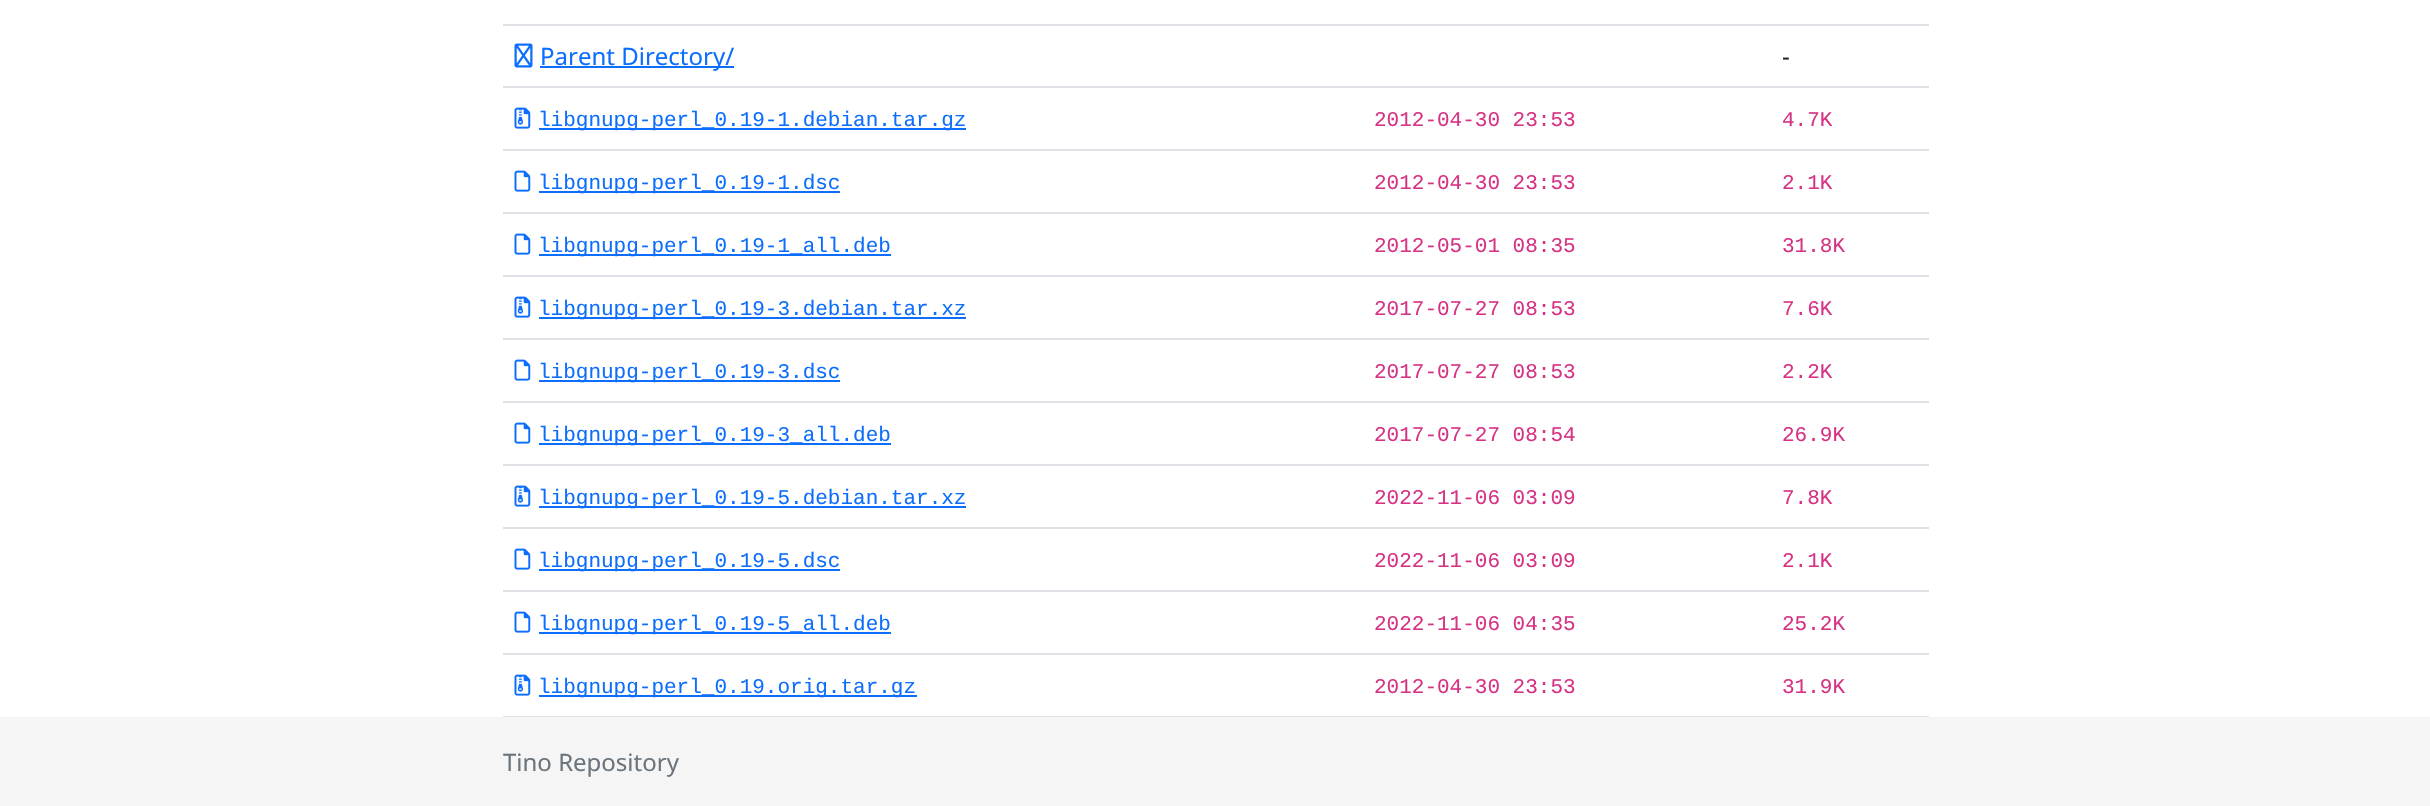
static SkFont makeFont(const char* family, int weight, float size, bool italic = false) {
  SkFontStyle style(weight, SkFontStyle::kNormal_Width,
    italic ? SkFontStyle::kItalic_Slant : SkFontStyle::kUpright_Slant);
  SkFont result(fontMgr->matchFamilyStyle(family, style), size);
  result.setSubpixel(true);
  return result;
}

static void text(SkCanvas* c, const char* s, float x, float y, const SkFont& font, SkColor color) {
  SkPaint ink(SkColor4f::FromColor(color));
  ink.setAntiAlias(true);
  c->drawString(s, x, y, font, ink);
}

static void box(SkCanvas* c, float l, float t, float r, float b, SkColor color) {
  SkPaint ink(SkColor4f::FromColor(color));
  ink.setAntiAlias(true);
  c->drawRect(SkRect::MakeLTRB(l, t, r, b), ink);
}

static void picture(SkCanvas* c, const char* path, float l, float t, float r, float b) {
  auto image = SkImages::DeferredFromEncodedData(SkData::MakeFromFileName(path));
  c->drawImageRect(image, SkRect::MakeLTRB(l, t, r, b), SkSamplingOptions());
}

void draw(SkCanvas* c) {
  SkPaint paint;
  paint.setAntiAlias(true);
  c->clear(0xffffffff);
  box(c, 503, 24, 1929, 26, 0xffdee2e6);
  picture(c, "img_01.png", 514, 43, 533, 68);
  box(c, 540, 66, 734, 68, 0xff0d6efd);
  SkFont face1 = makeFont("Noto Sans", 400, 24);
  text(c, "Parent Directory/", 540, 65, face1, 0xff0d6efd);
  box(c, 503, 86, 1929, 88, 0xffdee2e6);
  text(c, "-", 1782, 65, face1, 0xff212529);
  picture(c, "img_02.png", 514, 107, 531, 129);
  box(c, 539, 128, 966, 130, 0xff0d6efd);
  SkFont face2 = makeFont("Liberation Mono", 400, 21);
  text(c, "libgnupg-perl_0.19-1.debian.tar.gz", 538, 126, face2, 0xff0d6efd);
  text(c, "2012-04-30 23:53", 1374, 126, face2, 0xffd63384);
  box(c, 503, 149, 1929, 151, 0xffdee2e6);
  text(c, "4.7K", 1782, 126, face2, 0xffd63384);
  picture(c, "img_03.png", 514, 170, 531, 192);
  box(c, 539, 191, 840, 193, 0xff0d6efd);
  text(c, "libgnupg-perl_0.19-1.dsc", 538, 189, face2, 0xff0d6efd);
  text(c, "2012-04-30 23:53", 1374, 189, face2, 0xffd63384);
  box(c, 503, 212, 1929, 214, 0xffdee2e6);
  text(c, "2.1K", 1782, 189, face2, 0xffd63384);
  picture(c, "img_03.png", 514, 233, 531, 255);
  box(c, 539, 254, 891, 256, 0xff0d6efd);
  text(c, "libgnupg-perl_0.19-1_all.deb", 538, 252, face2, 0xff0d6efd);
  text(c, "2012-05-01 08:35", 1374, 252, face2, 0xffd63384);
  box(c, 503, 275, 1929, 277, 0xffdee2e6);
  text(c, "31.8K", 1782, 252, face2, 0xffd63384);
  picture(c, "img_02.png", 514, 296, 531, 318);
  box(c, 539, 317, 966, 319, 0xff0d6efd);
  text(c, "libgnupg-perl_0.19-3.debian.tar.xz", 538, 315, face2, 0xff0d6efd);
  text(c, "2017-07-27 08:53", 1374, 315, face2, 0xffd63384);
  box(c, 503, 338, 1929, 340, 0xffdee2e6);
  text(c, "7.6K", 1782, 315, face2, 0xffd63384);
  picture(c, "img_03.png", 514, 359, 531, 381);
  box(c, 539, 380, 840, 382, 0xff0d6efd);
  text(c, "libgnupg-perl_0.19-3.dsc", 538, 378, face2, 0xff0d6efd);
  text(c, "2017-07-27 08:53", 1374, 378, face2, 0xffd63384);
  box(c, 503, 401, 1929, 403, 0xffdee2e6);
  text(c, "2.2K", 1782, 378, face2, 0xffd63384);
  picture(c, "img_03.png", 514, 422, 531, 444);
  box(c, 539, 443, 891, 445, 0xff0d6efd);
  text(c, "libgnupg-perl_0.19-3_all.deb", 538, 441, face2, 0xff0d6efd);
  text(c, "2017-07-27 08:54", 1374, 441, face2, 0xffd63384);
  box(c, 503, 464, 1929, 466, 0xffdee2e6);
  text(c, "26.9K", 1782, 441, face2, 0xffd63384);
  picture(c, "img_02.png", 514, 485, 531, 507);
  box(c, 539, 506, 966, 508, 0xff0d6efd);
  text(c, "libgnupg-perl_0.19-5.debian.tar.xz", 538, 504, face2, 0xff0d6efd);
  text(c, "2022-11-06 03:09", 1374, 504, face2, 0xffd63384);
  box(c, 503, 527, 1929, 529, 0xffdee2e6);
  text(c, "7.8K", 1782, 504, face2, 0xffd63384);
  picture(c, "img_03.png", 514, 548, 531, 570);
  box(c, 539, 569, 840, 571, 0xff0d6efd);
  text(c, "libgnupg-perl_0.19-5.dsc", 538, 567, face2, 0xff0d6efd);
  text(c, "2022-11-06 03:09", 1374, 567, face2, 0xffd63384);
  box(c, 503, 590, 1929, 592, 0xffdee2e6);
  text(c, "2.1K", 1782, 567, face2, 0xffd63384);
  picture(c, "img_03.png", 514, 611, 531, 633);
  box(c, 539, 632, 891, 634, 0xff0d6efd);
  text(c, "libgnupg-perl_0.19-5_all.deb", 538, 630, face2, 0xff0d6efd);
  text(c, "2022-11-06 04:35", 1374, 630, face2, 0xffd63384);
  box(c, 503, 653, 1929, 655, 0xffdee2e6);
  text(c, "25.2K", 1782, 630, face2, 0xffd63384);
  picture(c, "img_02.png", 514, 674, 531, 696);
  box(c, 539, 695, 917, 697, 0xff0d6efd);
  text(c, "libgnupg-perl_0.19.orig.tar.gz", 538, 693, face2, 0xff0d6efd);
  text(c, "2012-04-30 23:53", 1374, 693, face2, 0xffd63384);
  box(c, 503, 716, 1929, 717, 0xffdee2e6);
  text(c, "31.9K", 1782, 693, face2, 0xffd63384);
  box(c, 0, 717, 2430, 806, 0xfff5f5f5);
  text(c, "Tino Repository", 503, 771, face1, 0xff6c757d);
}
